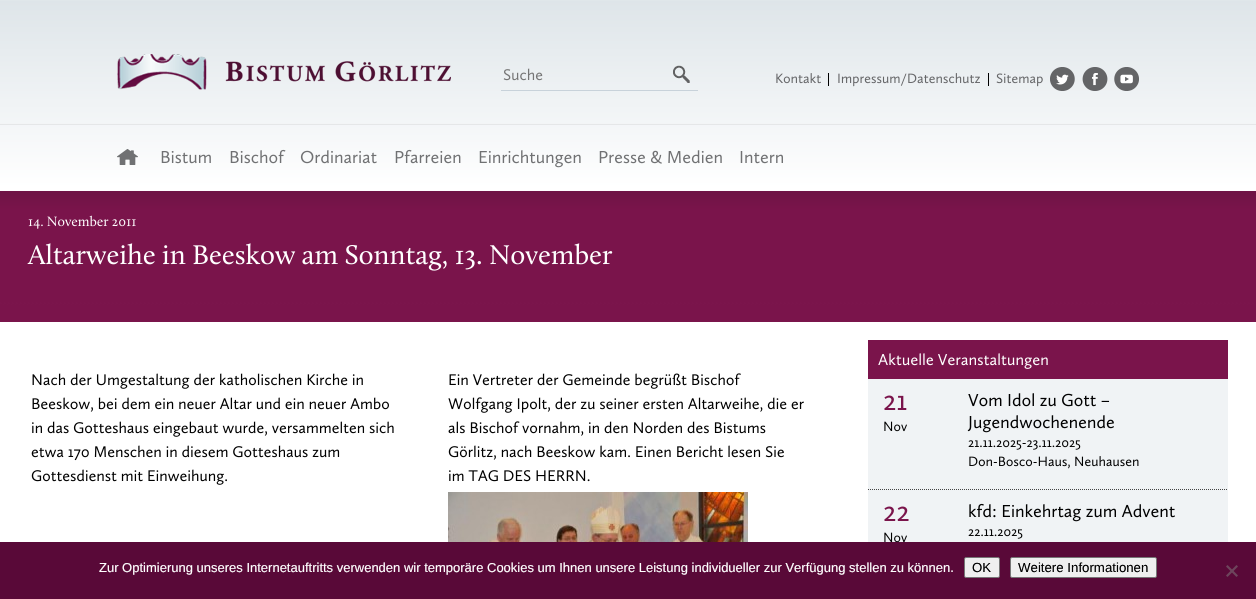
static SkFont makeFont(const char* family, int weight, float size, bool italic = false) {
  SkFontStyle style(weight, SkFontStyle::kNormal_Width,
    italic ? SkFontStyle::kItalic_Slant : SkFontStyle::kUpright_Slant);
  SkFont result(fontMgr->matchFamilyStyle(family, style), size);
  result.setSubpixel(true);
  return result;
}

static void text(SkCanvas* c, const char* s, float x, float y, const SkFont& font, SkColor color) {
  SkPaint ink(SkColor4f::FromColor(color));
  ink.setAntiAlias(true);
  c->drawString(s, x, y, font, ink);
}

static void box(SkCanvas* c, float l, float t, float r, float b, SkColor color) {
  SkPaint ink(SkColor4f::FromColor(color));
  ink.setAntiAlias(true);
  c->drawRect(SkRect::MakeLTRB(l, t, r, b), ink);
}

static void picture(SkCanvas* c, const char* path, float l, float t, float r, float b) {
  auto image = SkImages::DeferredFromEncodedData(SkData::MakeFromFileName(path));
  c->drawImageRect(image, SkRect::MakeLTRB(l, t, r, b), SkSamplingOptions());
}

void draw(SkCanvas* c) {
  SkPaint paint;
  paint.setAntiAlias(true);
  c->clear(0xffffffff);
  picture(c, "img_01.png", 0, 0, 1256, 322);
  picture(c, "img_02.png", 117, 54, 451, 90);
  picture(c, "img_03.png", 673, 65, 690, 83);
  box(c, 501, 90, 698, 91, 0xffc8d2da);
  picture(c, "img_04.png", 503, 68, 543, 81);
  picture(c, "img_05.png", 776, 73, 821, 84);
  box(c, 828, 73, 829, 86, 0xff000000);
  picture(c, "img_06.png", 838, 73, 980, 87);
  box(c, 988, 73, 989, 86, 0xff000000);
  picture(c, "img_07.png", 996, 73, 1043, 87);
  picture(c, "img_08.png", 1050, 67, 1075, 91);
  picture(c, "img_09.png", 1082, 67, 1108, 91);
  picture(c, "img_10.png", 1114, 67, 1139, 91);
  picture(c, "img_11.png", 117, 149, 138, 165);
  picture(c, "img_12.png", 161, 151, 211, 164);
  picture(c, "img_13.png", 230, 149, 286, 164);
  picture(c, "img_14.png", 300, 150, 377, 164);
  picture(c, "img_15.png", 395, 149, 461, 164);
  picture(c, "img_16.png", 479, 150, 581, 168);
  picture(c, "img_17.png", 599, 150, 722, 164);
  picture(c, "img_18.png", 740, 151, 783, 164);
  picture(c, "img_19.png", 28, 215, 136, 229);
  picture(c, "img_20.png", 27, 243, 613, 271);
  picture(c, "img_21.png", 32, 373, 363, 389);
  picture(c, "img_22.png", 32, 397, 389, 412);
  picture(c, "img_23.png", 32, 421, 394, 437);
  picture(c, "img_24.png", 31, 445, 340, 461);
  picture(c, "img_25.png", 31, 469, 227, 485);
  picture(c, "img_26.png", 449, 373, 741, 389);
  picture(c, "img_27.png", 448, 397, 804, 413);
  picture(c, "img_28.png", 448, 421, 766, 436);
  picture(c, "img_29.png", 448, 445, 784, 460);
  picture(c, "img_30.png", 449, 470, 590, 482);
  picture(c, "img_31.png", 448, 492, 748, 542);
  box(c, 868, 340, 1228, 379, 0xff7a144b);
  picture(c, "img_32.png", 878, 353, 1048, 369);
  box(c, 868, 379, 1228, 542, 0xfff0f3f5);
  paint.setStyle(SkPaint::kStroke_Style);
  paint.setStrokeWidth(1);
  paint.setColor(0xff444444);
  paint.setPathEffect(SkDashPathEffect::Make({{1, 1}}, 0));
  c->drawPath(SkPathBuilder().moveTo(868, 489.5f).lineTo(1228, 489.5f).detach(), paint);
  paint.setPathEffect(nullptr);
  picture(c, "img_33.png", 884, 395, 907, 410);
  picture(c, "img_34.png", 884, 421, 907, 432);
  picture(c, "img_35.png", 968, 393, 1110, 407);
  picture(c, "img_36.png", 967, 415, 1114, 433);
  picture(c, "img_37.png", 968, 440, 1081, 450);
  picture(c, "img_38.png", 969, 456, 1139, 469);
  picture(c, "img_39.png", 884, 506, 909, 521);
  picture(c, "img_40.png", 884, 532, 907, 542);
  picture(c, "img_41.png", 969, 503, 1175, 522);
  picture(c, "img_42.png", 968, 529, 1023, 539);
  box(c, 0, 542, 1256, 599, 0xff590938);
  SkFont face1 = makeFont("Liberation Sans", 400, 13);
  text(c, "Zur Optimierung unseres Internetauftritts verwenden wir temporäre Cookies um Ihnen unsere Leistung individueller zur Verfügung stellen zu können.", 99, 572, face1, 0xffffffff);
  paint.setStyle(SkPaint::kFill_Style);
  paint.setColor(0xffefefef);
  c->drawRoundRect(SkRect::MakeLTRB(964.5f, 557.5f, 999.5f, 577.5f), 1.5f, 1.5f, paint);
  paint.setStyle(SkPaint::kStroke_Style);
  paint.setColor(0xff767676);
  c->drawRoundRect(SkRect::MakeLTRB(964.5f, 557.5f, 999.5f, 577.5f), 1.5f, 1.5f, paint);
  SkFont face2 = makeFont("Liberation Sans", 400, 13.25f);
  text(c, "OK", 972, 572, face2, 0xff000000);
  paint.setStyle(SkPaint::kFill_Style);
  paint.setColor(0xffefefef);
  c->drawRoundRect(SkRect::MakeLTRB(1010.5f, 557.5f, 1156.5f, 577.5f), 1.5f, 1.5f, paint);
  paint.setStyle(SkPaint::kStroke_Style);
  paint.setColor(0xff767676);
  c->drawRoundRect(SkRect::MakeLTRB(1010.5f, 557.5f, 1156.5f, 577.5f), 1.5f, 1.5f, paint);
  text(c, "Weitere Informationen", 1018, 572, face2, 0xff000000);
  paint.setStyle(SkPaint::kFill_Style);
  paint.setColor(0xff6d455c);
  c->drawPath(SkPathBuilder().moveTo(1236.5f, 565).lineTo(1238, 566.5f).lineTo(1227.5f, 577).lineTo(1226, 575.5f).close().detach(), paint);
  c->drawPath(SkPathBuilder().moveTo(1226, 566.5f).lineTo(1227.5f, 565).lineTo(1238, 575.5f).lineTo(1236.5f, 577).close().detach(), paint);
}
